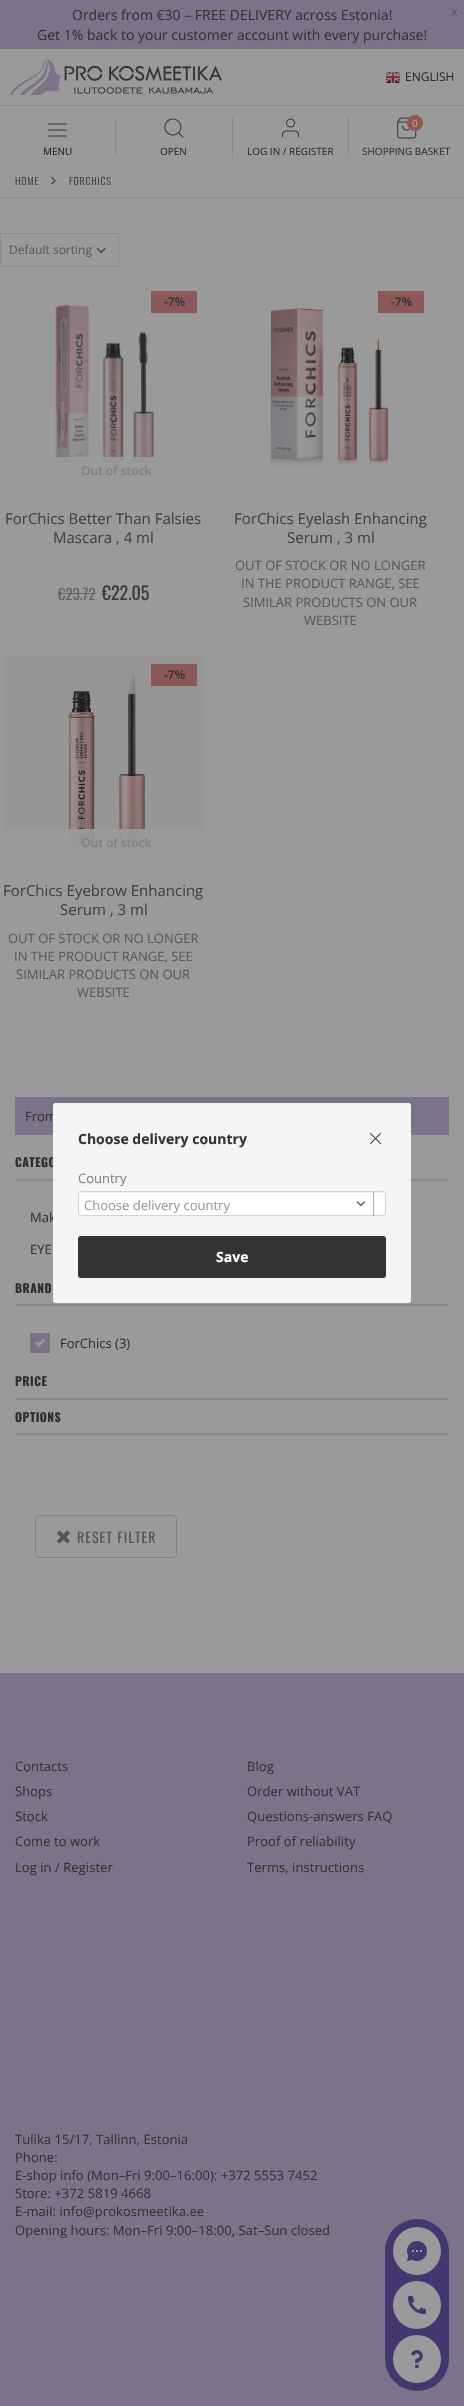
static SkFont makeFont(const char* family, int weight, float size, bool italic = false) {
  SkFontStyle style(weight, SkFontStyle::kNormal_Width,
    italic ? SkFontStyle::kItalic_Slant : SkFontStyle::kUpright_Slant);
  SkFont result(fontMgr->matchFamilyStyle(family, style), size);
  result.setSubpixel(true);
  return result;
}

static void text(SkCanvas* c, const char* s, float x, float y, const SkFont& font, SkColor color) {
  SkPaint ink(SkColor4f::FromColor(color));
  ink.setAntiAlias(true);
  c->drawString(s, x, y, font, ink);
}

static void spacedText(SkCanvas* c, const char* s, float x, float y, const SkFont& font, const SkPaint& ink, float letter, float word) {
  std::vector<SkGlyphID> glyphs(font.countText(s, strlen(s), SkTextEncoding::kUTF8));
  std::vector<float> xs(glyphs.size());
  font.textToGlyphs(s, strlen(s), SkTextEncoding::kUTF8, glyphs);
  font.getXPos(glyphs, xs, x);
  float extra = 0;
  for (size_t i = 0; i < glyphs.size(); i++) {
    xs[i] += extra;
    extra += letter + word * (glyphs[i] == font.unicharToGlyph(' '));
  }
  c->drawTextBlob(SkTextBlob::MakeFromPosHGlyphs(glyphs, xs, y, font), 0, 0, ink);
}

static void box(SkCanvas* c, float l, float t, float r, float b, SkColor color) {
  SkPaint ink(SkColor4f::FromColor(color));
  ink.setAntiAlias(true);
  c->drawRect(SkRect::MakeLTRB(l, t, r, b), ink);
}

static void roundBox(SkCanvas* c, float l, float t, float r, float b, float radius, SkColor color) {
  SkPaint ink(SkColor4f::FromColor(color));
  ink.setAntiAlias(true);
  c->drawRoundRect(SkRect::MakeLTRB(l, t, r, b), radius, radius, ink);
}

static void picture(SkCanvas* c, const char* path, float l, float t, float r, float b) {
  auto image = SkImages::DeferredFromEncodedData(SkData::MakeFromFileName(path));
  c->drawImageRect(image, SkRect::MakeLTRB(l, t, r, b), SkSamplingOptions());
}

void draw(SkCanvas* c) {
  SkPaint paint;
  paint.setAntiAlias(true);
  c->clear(0xff9a9a9a);
  box(c, 0, 0, 464, 49, 0xff7c738b);
  SkFont face1 = makeFont("Open Sans", 400, 14);
  text(c, "Orders from €30 – FREE DELIVERY across Estonia!", 72, 20, face1, 0xff343434);
  text(c, "Get 1% back to your customer account with every purchase!", 37, 40, face1, 0xff343434);
  SkFont face2 = makeFont("Open Sans", 400, 13);
  text(c, "x", 451, 16, face2, 0xff585a5c);
  box(c, 0, 105, 464, 106, 0xff888a8b);
  picture(c, "img_01.png", 10, 59, 222, 95);
  picture(c, "img_02.png", 386, 72, 400, 83);
  SkFont face3 = makeFont("Open Sans", 400, 12);
  text(c, "ENGLISH", 405, 81, face3, 0xff2d2d2d);
  box(c, 115, 118, 116, 156, 0xff888a8b);
  picture(c, "img_03.png", 47, 123, 67, 137);
  SkFont face4 = makeFont("Open Sans", 400, 10);
  text(c, "MENU", 43, 155, face4, 0xff24272a);
  box(c, 232, 116, 233, 158, 0xff888a8b);
  picture(c, "img_04.png", 164, 118, 184, 138);
  text(c, "OPEN", 160, 155, face4, 0xff2d2d2d);
  box(c, 348, 116, 349, 158, 0xff888a8b);
  picture(c, "img_05.png", 282, 118, 299, 138);
  text(c, "LOG IN / REGISTER", 247, 155, face4, 0xff2d2d2d);
  picture(c, "img_06.png", 397, 117, 417, 139);
  paint.setColor(0xff91594c);
  c->drawCircle(415, 123, 8, paint);
  SkFont face5 = makeFont("Open Sans", 600, 10);
  text(c, "0", 412, 127, face5, 0xff9a9a9a);
  text(c, "SHOPPING BASKET", 362, 155, face4, 0xff343434);
  box(c, 0, 197, 464, 198, 0xff8d8d8d);
  SkFont face6 = makeFont("Oswald", 300, 10);
  paint.setColor(0xff343434);
  spacedText(c, "HOME", 15, 185, face6, paint, 0.75f, 0);
  picture(c, "img_07.png", 51, 176, 56, 185);
  spacedText(c, "FORCHICS", 69, 185, face6, paint, 0.75f, 0);
  paint.setStyle(SkPaint::kStroke_Style);
  paint.setStrokeWidth(1);
  paint.setColor(0xff8c8c8c);
  c->drawRect(SkRect::MakeLTRB(0.5f, 233.5f, 118.5f, 266.5f), paint);
  text(c, "Default sorting", 9, 254, face3, 0xff585a5c);
  picture(c, "img_08.png", 96, 248, 106, 254);
  picture(c, "img_09.png", 55, 304, 154, 466);
  box(c, 151, 291, 197, 313, 0xff8b5858);
  SkFont face7 = makeFont("Open Sans", 600, 12);
  text(c, "-7%", 164, 306, face7, 0xff343434);
  box(c, 55, 457, 154, 466, 0xe69a9a9a);
  text(c, "Out of stock", 81, 475, face7, 0xff808080);
  SkFont face8 = makeFont("Open Sans", 400, 15);
  text(c, "ForChics Better Than Falsies", 5, 524, face8, 0xff3f4346);
  text(c, "Mascara , 4 ml", 53, 543, face8, 0xff3f4346);
  SkFont face9 = makeFont("Oswald", 400, 15);
  text(c, "€23.72", 58, 600, face9, 0xff676767);
  box(c, 58, 593, 96, 594, 0xff676767);
  SkFont face10 = makeFont("Oswald", 400, 18);
  text(c, "€22.05", 102, 600, face10, 0xff383b40);
  picture(c, "img_10.png", 270, 308, 389, 466);
  box(c, 378, 291, 424, 313, 0xff8b5858);
  text(c, "-7%", 391, 306, face7, 0xff343434);
  text(c, "ForChics Eyelash Enhancing", 234, 524, face8, 0xff3f4346);
  text(c, "Serum , 3 ml", 287, 543, face8, 0xff3f4346);
  text(c, "OUT OF STOCK OR NO LONGER", 235, 570, face2, 0xff585a5c);
  text(c, "IN THE PRODUCT RANGE, SEE", 241, 588, face2, 0xff585a5c);
  text(c, "SIMILAR PRODUCTS ON OUR", 243, 607, face2, 0xff585a5c);
  text(c, "WEBSITE", 304, 625, face2, 0xff585a5c);
  picture(c, "img_11.png", 4, 656, 204, 856);
  box(c, 151, 664, 197, 686, 0xff8b5858);
  text(c, "-7%", 164, 679, face7, 0xff343434);
  box(c, 4, 829, 204, 856, 0xe69a9a9a);
  text(c, "Out of stock", 81, 847, face7, 0xff808080);
  text(c, "ForChics Eyebrow Enhancing", 3, 896, face8, 0xff3f4346);
  text(c, "Serum , 3 ml", 60, 915, face8, 0xff3f4346);
  text(c, "OUT OF STOCK OR NO LONGER", 8, 943, face2, 0xff585a5c);
  text(c, "IN THE PRODUCT RANGE, SEE", 14, 961, face2, 0xff585a5c);
  text(c, "SIMILAR PRODUCTS ON OUR", 16, 979, face2, 0xff585a5c);
  text(c, "WEBSITE", 77, 997, face2, 0xff585a5c);
  box(c, 15, 1097, 449, 1135, 0xff7c738b);
  text(c, "From", 25, 1121, face2, 0xff343434);
  box(c, 15, 1179, 449, 1181, 0xff8a8a8a);
  SkFont face11 = makeFont("Oswald", 700, 12);
  paint.setStyle(SkPaint::kFill_Style);
  paint.setColor(0xff2d2d2d);
  spacedText(c, "CATEGO", 15, 1167, face11, paint, 0.5f, 0);
  text(c, "Mak", 30, 1222, face2, 0xff343434);
  text(c, "EYE", 30, 1254, face2, 0xff343434);
  box(c, 15, 1304, 449, 1306, 0xff8a8a8a);
  spacedText(c, "BRAND", 15, 1293, face11, paint, 0.5f, 0);
  box(c, 30, 1333, 50, 1353, 0xff7c738b);
  text(c, "ForChics (3)", 60, 1348, face2, 0xff343434);
  picture(c, "img_12.png", 35, 1339, 45, 1347);
  box(c, 15, 1398, 449, 1400, 0xff8a8a8a);
  spacedText(c, "PRICE", 15, 1386, face11, paint, 0.5f, 0);
  box(c, 15, 1433, 449, 1435, 0xff8a8a8a);
  spacedText(c, "OPTIONS", 15, 1422, face11, paint, 0.5f, 0);
  paint.setStyle(SkPaint::kStroke_Style);
  paint.setColor(0xff808080);
  c->drawRoundRect(SkRect::MakeLTRB(35.5f, 1515.5f, 176.5f, 1557.5f), 3.5f, 3.5f, paint);
  picture(c, "img_13.png", 57, 1530, 70, 1544);
  SkFont face12 = makeFont("Oswald", 400, 14);
  paint.setStyle(SkPaint::kFill_Style);
  paint.setColor(0xff565656);
  spacedText(c, "RESET FILTER", 77, 1543, face12, paint, 1, 0);
  box(c, 0, 1673, 464, 2406, 0xff7c738b);
  paint.setColor(0xff343434);
  spacedText(c, "Contacts", 15, 1771, face2, paint, 0.05f, 0);
  spacedText(c, "Shops", 15, 1796, face2, paint, 0.05f, 0);
  spacedText(c, "Stock", 15, 1821, face2, paint, 0.05f, 0);
  spacedText(c, "Come to work", 15, 1846, face2, paint, 0.05f, 0);
  spacedText(c, "Log in / Register", 15, 1872, face2, paint, 0.05f, 0);
  spacedText(c, "Blog", 247, 1771, face2, paint, 0.05f, 0);
  spacedText(c, "Order without VAT", 247, 1796, face2, paint, 0.05f, 0);
  spacedText(c, "Questions-answers FAQ", 247, 1821, face2, paint, 0.05f, 0);
  spacedText(c, "Proof of reliability", 247, 1846, face2, paint, 0.05f, 0);
  spacedText(c, "Terms, instructions", 247, 1872, face2, paint, 0.05f, 0);
  spacedText(c, "Tulika 15/17, Tallinn, Estonia", 15, 2144, face2, paint, 0.05f, 0);
  spacedText(c, "Phone:", 15, 2162, face2, paint, 0.05f, 0);
  spacedText(c, "E-shop info (Mon–Fri 9:00–16:00): +372 5553 7452", 15, 2180, face2, paint, 0.05f, 0);
  spacedText(c, "Store: +372 5819 4668", 15, 2198, face2, paint, 0.05f, 0);
  spacedText(c, "E-mail: info@prokosmeetika.ee", 15, 2216, face2, paint, 0.05f, 0);
  spacedText(c, "Opening hours: Mon–Fri 9:00–18:00, Sat–Sun closed", 15, 2235, face2, paint, 0.05f, 0);
  roundBox(c, 53, 1103, 411, 1303, 3, 0xfff5f5f5);
  SkFont face13 = makeFont("Open Sans", 700, 14);
  text(c, "Choose delivery country", 78, 1144, face13, 0xff343434);
  picture(c, "img_14.png", 370, 1133, 381, 1144);
  text(c, "Country", 78, 1183, face2, 0xff808080);
  roundBox(c, 78, 1191, 386, 1216, 2.5f, 0xffffffff);
  paint.setColor(0xffececec);
  c->drawPath(SkPathBuilder().moveTo(80, 1193).lineTo(384, 1193).lineTo(385, 1194).cubicTo(385, 1193, 385, 1192, 384, 1192).lineTo(80, 1192).lineTo(79, 1193).lineTo(79, 1194).close().detach(), paint);
  paint.setStyle(SkPaint::kStroke_Style);
  paint.setColor(0xffced4da);
  c->drawRoundRect(SkRect::MakeLTRB(78.5f, 1191.5f, 385.5f, 1215.5f), 2, 2, paint);
  text(c, "Choose delivery country", 84, 1210, face2, 0xff9a9a9a);
  box(c, 373, 1192, 374, 1216, 0xffaaaaaa);
  picture(c, "img_15.png", 356, 1201, 365, 1207);
  roundBox(c, 78, 1236, 386, 1278, 3, 0xff343434);
  text(c, "Save", 216, 1262, face13, 0xffffffff);
  roundBox(c, 385, 2219, 449, 2391, 32, 0xff44366e);
  paint.setStyle(SkPaint::kFill_Style);
  paint.setColor(0xff9a9a9a);
  c->drawCircle(417, 2251, 24, paint);
  picture(c, "img_16.png", 407, 2241, 427, 2261);
  c->drawCircle(417, 2305, 24, paint);
  picture(c, "img_17.png", 408, 2296, 426, 2314);
  c->drawCircle(417, 2359, 24, paint);
  picture(c, "img_18.png", 411, 2350, 423, 2368);
}
